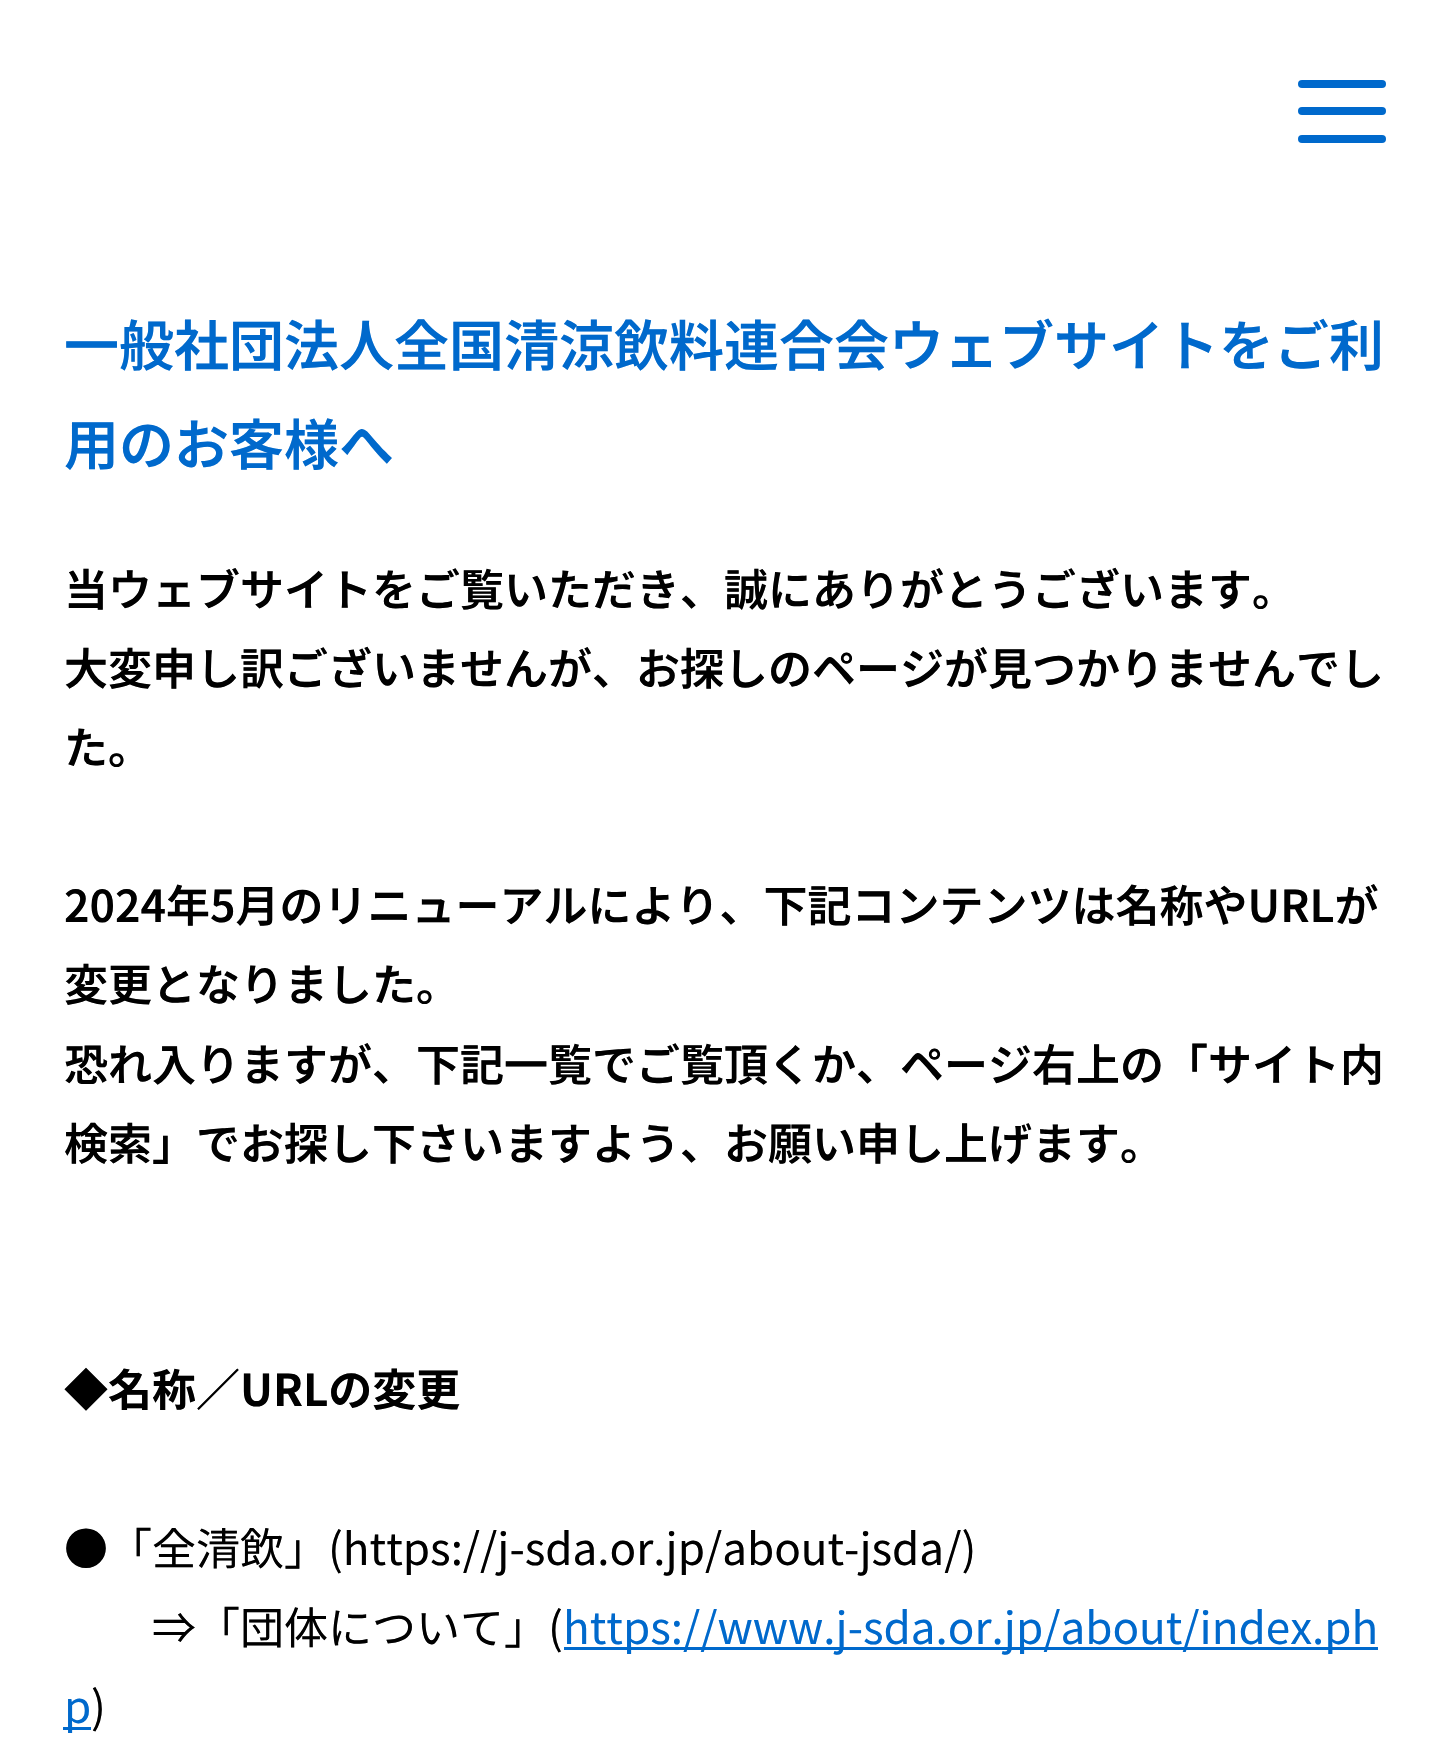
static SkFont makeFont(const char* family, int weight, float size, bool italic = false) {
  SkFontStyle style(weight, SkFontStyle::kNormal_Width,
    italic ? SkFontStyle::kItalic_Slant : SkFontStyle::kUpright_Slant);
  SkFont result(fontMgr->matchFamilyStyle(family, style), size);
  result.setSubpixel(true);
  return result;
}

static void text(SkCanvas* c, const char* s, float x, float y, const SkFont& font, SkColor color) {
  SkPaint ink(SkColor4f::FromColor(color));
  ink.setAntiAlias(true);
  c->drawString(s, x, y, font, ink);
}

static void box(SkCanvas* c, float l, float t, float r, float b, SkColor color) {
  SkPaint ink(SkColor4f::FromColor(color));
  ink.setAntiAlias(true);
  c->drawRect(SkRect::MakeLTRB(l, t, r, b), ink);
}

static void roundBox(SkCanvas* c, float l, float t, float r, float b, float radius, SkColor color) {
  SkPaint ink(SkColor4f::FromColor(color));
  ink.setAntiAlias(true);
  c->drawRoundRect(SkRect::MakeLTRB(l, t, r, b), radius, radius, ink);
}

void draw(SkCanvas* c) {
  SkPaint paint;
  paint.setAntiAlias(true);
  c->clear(0xffffffff);
  roundBox(c, 1298, 107, 1386, 115, 4, 0xff0069cc);
  roundBox(c, 1298, 80, 1386, 88, 4, 0xff0069cc);
  roundBox(c, 1298, 135, 1386, 143, 4, 0xff0069cc);
  SkFont face1 = makeFont("Noto Sans JP", 600, 55);
  text(c, "一般社団法人全国清涼飲料連合会ウェブサイトをご利", 64, 366, face1, 0xff0069cc);
  text(c, "用のお客様へ", 64, 465, face1, 0xff0069cc);
  SkFont face2 = makeFont("Noto Sans JP", 600, 44);
  text(c, "当ウェブサイトをご覧いただき、誠にありがとうございます。", 64, 606, face2, 0xff000000);
  text(c, "大変申し訳ございませんが、お探しのページが見つかりませんでし", 64, 685, face2, 0xff000000);
  text(c, "た。", 64, 764, face2, 0xff000000);
  text(c, "2024年5月のリニューアルにより、下記コンテンツは名称やURLが", 64, 922, face2, 0xff000000);
  text(c, "変更となりました。", 64, 1001, face2, 0xff000000);
  text(c, "恐れ入りますが、下記一覧でご覧頂くか、ページ右上の「サイト内", 64, 1081, face2, 0xff000000);
  text(c, "検索」でお探し下さいますよう、お願い申し上げます。", 64, 1160, face2, 0xff000000);
  SkFont face3 = makeFont("Noto Sans JP", 700, 44);
  text(c, "◆名称／URLの変更", 64, 1406, face3, 0xff000000);
  SkFont face4 = makeFont("Noto Sans JP", 400, 44);
  text(c, "●「全清飲」(https://j-sda.or.jp/about-jsda/)", 64, 1565, face4, 0xff000000);
  text(c, "⇒「団体について」(", 152, 1644, face4, 0xff000000);
  box(c, 564, 1647, 1378, 1650, 0xff0069cc);
  text(c, "https://www.j-sda.or.jp/about/index.ph", 563, 1644, face4, 0xff0069cc);
  box(c, 63, 1727, 91, 1730, 0xff0069cc);
  text(c, "p", 64, 1723, face4, 0xff0069cc);
  text(c, ")", 91, 1723, face4, 0xff000000);
}
